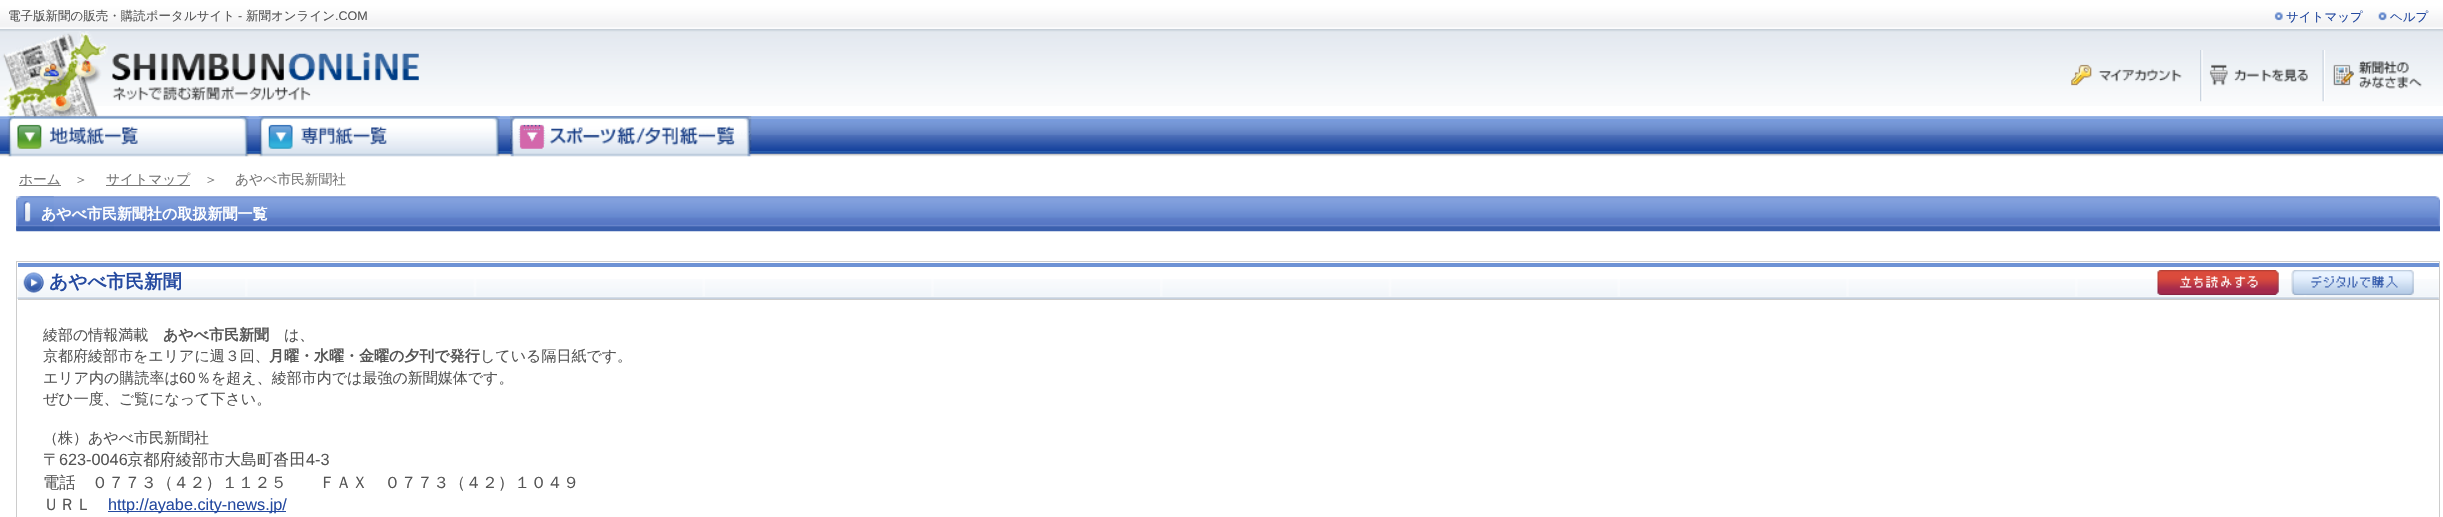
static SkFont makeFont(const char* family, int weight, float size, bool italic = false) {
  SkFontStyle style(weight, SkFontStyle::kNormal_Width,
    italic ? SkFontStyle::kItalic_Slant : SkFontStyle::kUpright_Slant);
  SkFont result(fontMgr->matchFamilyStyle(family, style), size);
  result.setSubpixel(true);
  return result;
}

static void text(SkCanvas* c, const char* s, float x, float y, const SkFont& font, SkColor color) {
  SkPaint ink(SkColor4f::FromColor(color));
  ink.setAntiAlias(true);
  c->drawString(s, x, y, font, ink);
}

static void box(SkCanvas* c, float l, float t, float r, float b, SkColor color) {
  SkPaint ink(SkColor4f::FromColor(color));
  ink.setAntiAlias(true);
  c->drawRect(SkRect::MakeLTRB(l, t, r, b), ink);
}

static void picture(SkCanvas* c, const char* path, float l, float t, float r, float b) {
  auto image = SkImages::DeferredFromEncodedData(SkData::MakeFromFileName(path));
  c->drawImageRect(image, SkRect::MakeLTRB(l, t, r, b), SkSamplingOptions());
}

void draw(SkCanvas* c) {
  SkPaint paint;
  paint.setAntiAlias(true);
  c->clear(0xffffffff);
  picture(c, "img_01.png", 0, 28, 2443, 106);
  picture(c, "img_02.png", 0, 0, 2443, 29);
  SkFont face1 = makeFont("WenQuanYi Zen Hei", 500, 12.5f);
  text(c, "電子版新聞の販売・購読ポータルサイト", 8, 20, face1, 0xff555555);
  SkFont face2 = makeFont("Liberation Sans", 400, 12.5f);
  text(c, "-", 238, 20, face2, 0xff555555);
  text(c, "新聞オンライン", 246, 20, face1, 0xff555555);
  text(c, ".COM", 335, 20, face2, 0xff555555);
  picture(c, "img_03.png", 2274, 12, 2283, 21);
  text(c, "サイトマップ", 2286, 21, face1, 0xff254aa0);
  picture(c, "img_04.png", 2378, 12, 2387, 21);
  text(c, "ヘルプ", 2390, 21, face1, 0xff254aa0);
  picture(c, "img_09.png", 0, 116, 2443, 157);
  picture(c, "img_10.png", 7, 116, 249, 157);
  picture(c, "img_11.png", 258, 116, 500, 157);
  picture(c, "img_05.png", 0, 31, 419, 117);
  picture(c, "img_06.png", 2071, 64, 2182, 86);
  picture(c, "img_07.png", 2200, 50, 2308, 102);
  picture(c, "img_08.png", 2322, 50, 2422, 102);
  picture(c, "img_12.png", 510, 116, 752, 157);
  box(c, 19, 185, 61, 186, 0xff777777);
  SkFont face3 = makeFont("WenQuanYi Zen Hei", 500, 13.75f);
  text(c, "ホーム", 19, 184, face3, 0xff777777);
  text(c, "＞", 74, 184, face3, 0xff777777);
  box(c, 106, 185, 190, 186, 0xff777777);
  text(c, "サイトマップ", 106, 184, face3, 0xff777777);
  text(c, "＞", 204, 184, face3, 0xff777777);
  text(c, "あやべ市民新聞社", 235, 184, face3, 0xff777777);
  picture(c, "img_13.png", 16, 196, 2440, 232);
  picture(c, "img_14.png", 16, 196, 54, 230);
  SkFont face4 = makeFont("WenQuanYi Zen Hei", 700, 15);
  text(c, "あやべ市民新聞社の取扱新聞一覧", 41, 219, face4, 0xffffffff);
  paint.setStyle(SkPaint::kStroke_Style);
  paint.setStrokeWidth(1);
  paint.setColor(0xffcccccc);
  c->drawRect(SkRect::MakeLTRB(16.5f, 261.5f, 2439.5f, 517.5f), paint);
  picture(c, "img_15.png", 17, 279, 2439, 299);
  box(c, 18, 263, 2439, 267, 0xff6d92d5);
  box(c, 18, 299, 2439, 300, 0xffcccccc);
  picture(c, "img_16.png", 23, 272, 44, 293);
  SkFont face5 = makeFont("WenQuanYi Zen Hei", 700, 18.75f);
  text(c, "あやべ市民新聞", 49, 288, face5, 0xff254aa0);
  picture(c, "img_17.png", 2157, 270, 2279, 295);
  picture(c, "img_18.png", 2291, 270, 2414, 295);
  SkFont face6 = makeFont("WenQuanYi Zen Hei", 500, 15);
  text(c, "綾部の情報満載", 43, 340, face6, 0xff555555);
  text(c, "あやべ市民新聞", 163, 340, face4, 0xff555555);
  text(c, "は、", 284, 340, face6, 0xff555555);
  text(c, "京都府綾部市をエリアに週３回、", 43, 361, face6, 0xff555555);
  text(c, "月曜・水曜・金曜の夕刊で発行", 269, 361, face4, 0xff555555);
  text(c, "している隔日紙です。", 480, 361, face6, 0xff555555);
  text(c, "エリア内の購読率は", 43, 383, face6, 0xff555555);
  SkFont face7 = makeFont("Liberation Sans", 400, 15);
  text(c, "60", 179, 383, face7, 0xff555555);
  text(c, "％を超え、綾部市内では最強の新聞媒体です。", 196, 383, face6, 0xff555555);
  text(c, "ぜひ一度、ご覧になって下さい。", 43, 404, face6, 0xff555555);
  text(c, "（株）あやべ市民新聞社", 43, 443, face6, 0xff555555);
  SkFont face8 = makeFont("WenQuanYi Zen Hei", 500, 16.25f);
  text(c, "〒", 43, 465, face8, 0xff555555);
  SkFont face9 = makeFont("Liberation Sans", 400, 16.25f);
  text(c, "623-0046", 59, 465, face9, 0xff555555);
  text(c, "京都府綾部市大島町沓田", 127, 465, face8, 0xff555555);
  text(c, "4-3", 306, 465, face9, 0xff555555);
  text(c, "電話　０７７３（４２）１１２５　　ＦＡＸ　０７７３（４２）１０４９", 43, 488, face8, 0xff555555);
  text(c, "ＵＲＬ", 43, 510, face8, 0xff555555);
  box(c, 108, 511, 286, 512, 0xff254aa0);
  text(c, "http://ayabe.city-news.jp/", 108, 510, face9, 0xff254aa0);
}
